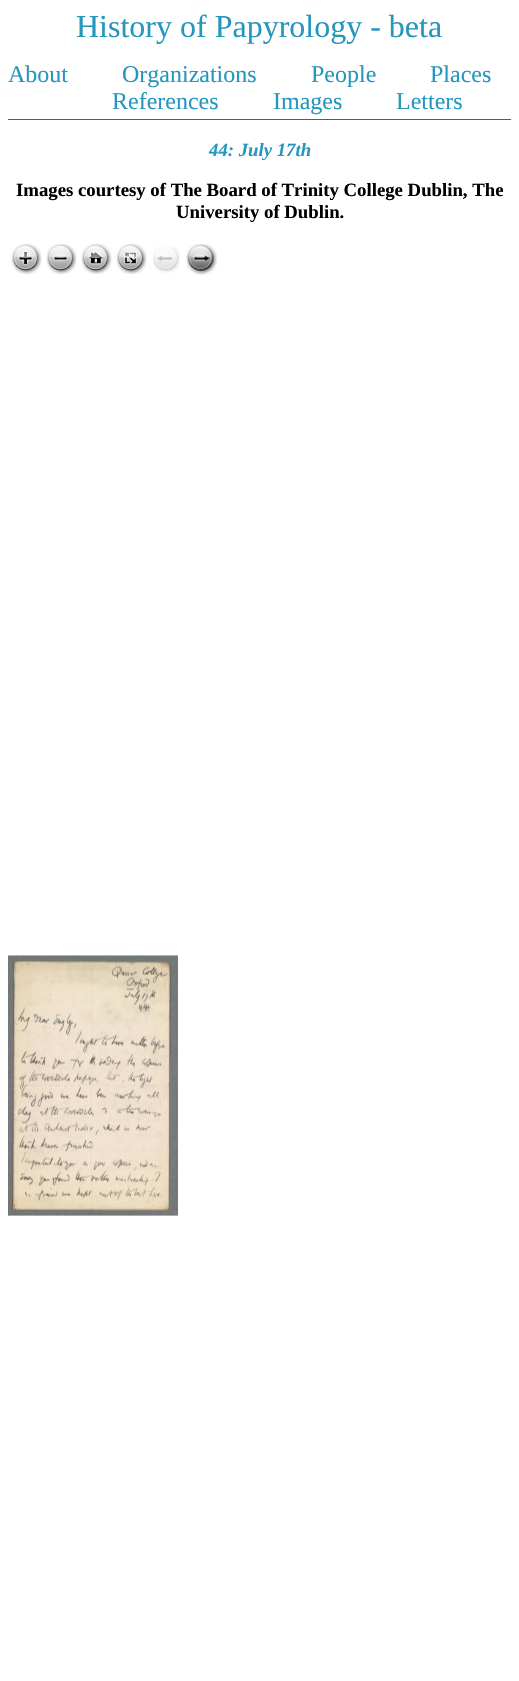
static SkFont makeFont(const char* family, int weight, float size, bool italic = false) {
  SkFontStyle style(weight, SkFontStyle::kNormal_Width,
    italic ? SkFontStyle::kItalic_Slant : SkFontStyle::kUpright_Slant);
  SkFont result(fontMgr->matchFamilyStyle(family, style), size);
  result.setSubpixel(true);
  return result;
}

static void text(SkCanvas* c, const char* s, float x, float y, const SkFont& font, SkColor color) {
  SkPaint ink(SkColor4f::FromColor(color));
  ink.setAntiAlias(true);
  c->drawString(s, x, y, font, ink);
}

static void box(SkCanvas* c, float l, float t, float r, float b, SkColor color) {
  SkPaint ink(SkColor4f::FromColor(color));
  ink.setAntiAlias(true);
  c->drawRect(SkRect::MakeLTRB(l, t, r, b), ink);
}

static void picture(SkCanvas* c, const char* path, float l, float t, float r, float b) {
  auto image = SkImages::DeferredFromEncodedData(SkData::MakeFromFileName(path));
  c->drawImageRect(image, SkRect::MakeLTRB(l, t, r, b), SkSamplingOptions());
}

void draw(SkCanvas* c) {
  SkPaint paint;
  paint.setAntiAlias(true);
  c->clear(0xffffffff);
  SkFont face1 = makeFont("Liberation Serif", 400, 32);
  text(c, "History of Papyrology - beta", 76, 37, face1, 0xff2596be);
  box(c, 8, 119, 511, 120, 0xff536060);
  SkFont face2 = makeFont("Liberation Serif", 400, 24);
  text(c, "About", 8, 82, face2, 0xff2596be);
  text(c, "Organizations", 122, 82, face2, 0xff2596be);
  text(c, "People", 311, 82, face2, 0xff2596be);
  text(c, "Places", 430, 82, face2, 0xff2596be);
  text(c, "References", 112, 109, face2, 0xff2596be);
  text(c, "Images", 273, 109, face2, 0xff2596be);
  text(c, "Letters", 396, 109, face2, 0xff2596be);
  SkFont face3 = makeFont("Liberation Serif", 700, 18.75f, true);
  text(c, "44: July 17th", 209, 156, face3, 0xff2596be);
  SkFont face4 = makeFont("Liberation Serif", 700, 18.75f);
  text(c, "Images courtesy of The Board of Trinity College Dublin, The", 16, 196, face4, 0xff000000);
  text(c, "University of Dublin.", 176, 218, face4, 0xff000000);
  picture(c, "img_01.png", 11, 243, 42, 274);
  picture(c, "img_02.png", 12, 244, 41, 274);
  picture(c, "img_03.png", 46, 243, 77, 274);
  picture(c, "img_04.png", 47, 244, 76, 274);
  picture(c, "img_05.png", 81, 243, 112, 274);
  picture(c, "img_06.png", 82, 244, 111, 274);
  picture(c, "img_07.png", 116, 243, 147, 274);
  picture(c, "img_08.png", 117, 244, 146, 274);
  picture(c, "img_09.png", 153, 245, 180, 273);
  picture(c, "img_10.png", 153, 248, 179, 271);
  picture(c, "img_11.png", 186, 244, 217, 275);
  picture(c, "img_12.png", 186, 244, 217, 275);
  picture(c, "img_13.png", 8, 955, 178, 1216);
}
